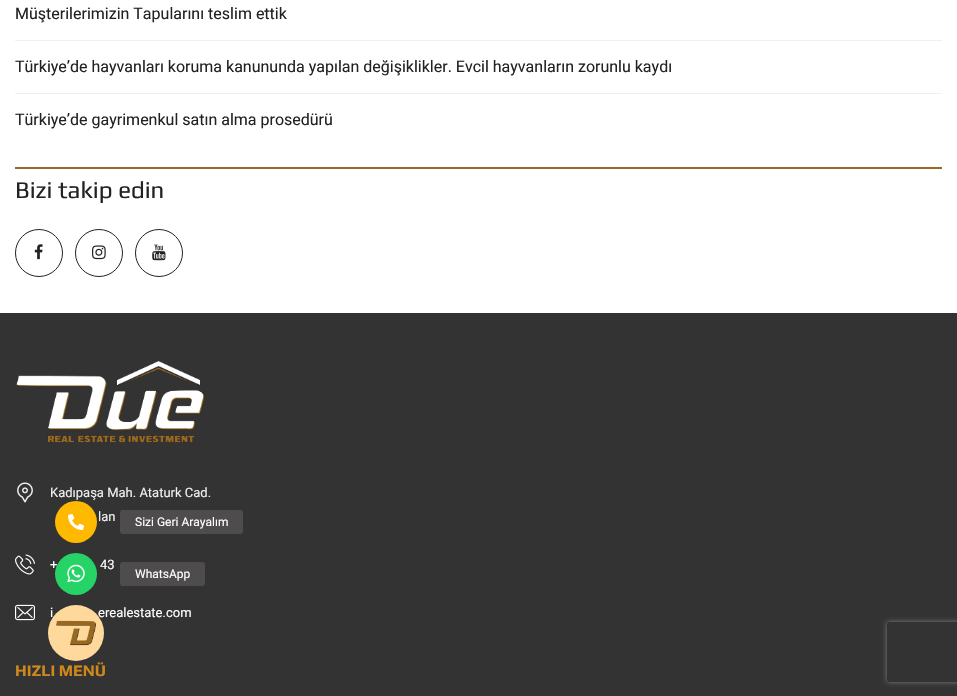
static SkFont makeFont(const char* family, int weight, float size, bool italic = false) {
  SkFontStyle style(weight, SkFontStyle::kNormal_Width,
    italic ? SkFontStyle::kItalic_Slant : SkFontStyle::kUpright_Slant);
  SkFont result(fontMgr->matchFamilyStyle(family, style), size);
  result.setSubpixel(true);
  return result;
}

static void text(SkCanvas* c, const char* s, float x, float y, const SkFont& font, SkColor color) {
  SkPaint ink(SkColor4f::FromColor(color));
  ink.setAntiAlias(true);
  c->drawString(s, x, y, font, ink);
}

static void box(SkCanvas* c, float l, float t, float r, float b, SkColor color) {
  SkPaint ink(SkColor4f::FromColor(color));
  ink.setAntiAlias(true);
  c->drawRect(SkRect::MakeLTRB(l, t, r, b), ink);
}

static void roundBox(SkCanvas* c, float l, float t, float r, float b, float radius, SkColor color) {
  SkPaint ink(SkColor4f::FromColor(color));
  ink.setAntiAlias(true);
  c->drawRoundRect(SkRect::MakeLTRB(l, t, r, b), radius, radius, ink);
}

static void picture(SkCanvas* c, const char* path, float l, float t, float r, float b) {
  auto image = SkImages::DeferredFromEncodedData(SkData::MakeFromFileName(path));
  c->drawImageRect(image, SkRect::MakeLTRB(l, t, r, b), SkSamplingOptions());
}

void draw(SkCanvas* c) {
  SkPaint paint;
  paint.setAntiAlias(true);
  c->clear(0xffffffff);
  box(c, 15, 40, 942, 41, 0xfff0f0f0);
  SkFont face1 = makeFont("Roboto", 400, 16);
  text(c, "Müşterilerimizin Tapularını teslim ettik", 15, 19, face1, 0xff222222);
  box(c, 15, 93, 942, 94, 0xfff0f0f0);
  text(c, "Türkiye’de hayvanları koruma kanununda yapılan değişiklikler. Evcil hayvanların zorunlu kaydı", 15, 72, face1, 0xff222222);
  text(c, "Türkiye’de gayrimenkul satın alma prosedürü", 15, 125, face1, 0xff222222);
  box(c, 15, 167, 942, 169, 0xff976b27);
  SkFont face2 = makeFont("Play", 400, 24);
  text(c, "Bizi takip edin", 15, 198, face2, 0xff222222);
  picture(c, "img_01.png", 34, 244, 43, 260);
  paint.setStyle(SkPaint::kStroke_Style);
  paint.setStrokeWidth(1);
  paint.setColor(0xff222222);
  c->drawCircle(39, 253, 23.5f, paint);
  picture(c, "img_02.png", 92, 245, 106, 260);
  c->drawCircle(99, 253, 23.5f, paint);
  picture(c, "img_03.png", 152, 244, 166, 261);
  c->drawCircle(159, 253, 23.5f, paint);
  box(c, 0, 313, 957, 696, 0xff333333);
  picture(c, "img_04.png", 16, 361, 205, 443);
  picture(c, "img_05.png", 17, 482, 33, 503);
  SkFont face3 = makeFont("Roboto", 400, 13);
  text(c, "Kadıpaşa Mah. Ataturk Cad.", 50, 497, face3, 0xfff0f0f0);
  text(c, "lan", 98, 521, face3, 0xfff0f0f0);
  picture(c, "img_06.png", 15, 554, 35, 575);
  text(c, "+", 50, 569, face3, 0xffffffff);
  text(c, "43", 100, 569, face3, 0xffffffff);
  picture(c, "img_07.png", 15, 604, 35, 621);
  text(c, "i", 50, 617, face3, 0xffffffff);
  text(c, "erealestate.com", 98, 617, face3, 0xffffffff);
  SkFont face4 = makeFont("Play", 700, 16);
  text(c, "HIZLI MENÜ", 15, 676, face4, 0xffcf881b);
  paint.setStyle(SkPaint::kFill_Style);
  paint.setColor(0xffffb900);
  c->drawCircle(76, 522, 21, paint);
  picture(c, "img_08.png", 68, 514, 84, 530);
  roundBox(c, 120, 510, 243, 534, 3, 0xff4e4c4c);
  SkFont face5 = makeFont("Roboto", 400, 12);
  text(c, "Sizi Geri Arayalım", 135, 526, face5, 0xffffffff);
  paint.setColor(0xff25d366);
  c->drawCircle(76, 574, 21, paint);
  picture(c, "img_09.png", 67, 564, 85, 583);
  roundBox(c, 120, 562, 205, 586, 3, 0xff4e4c4c);
  text(c, "WhatsApp", 135, 578, face5, 0xffffffff);
  paint.setColor(0xffffd89c);
  c->drawCircle(76, 633, 28, paint);
  picture(c, "img_10.png", 56, 620, 96, 646);
  c->save();
  c->clipPath(SkPathBuilder(SkPathFillType::kEvenOdd).moveTo(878, 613).lineTo(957, 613).lineTo(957, 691).lineTo(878, 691).close().moveTo(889, 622).lineTo(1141, 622).cubicTo(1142, 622, 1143, 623, 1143, 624).lineTo(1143, 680).cubicTo(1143, 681, 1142, 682, 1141, 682).lineTo(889, 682).cubicTo(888, 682, 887, 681, 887, 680).lineTo(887, 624).cubicTo(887, 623, 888, 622, 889, 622).close().detach(), true);
  paint.setColor(0xff808080);
  paint.setMaskFilter(SkMaskFilter::MakeBlur(kNormal_SkBlurStyle, 2.5f));
  c->drawRoundRect(SkRect::MakeLTRB(887, 622, 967, 682), 2, 2, paint);
  paint.setMaskFilter(nullptr);
  c->restore();
}
